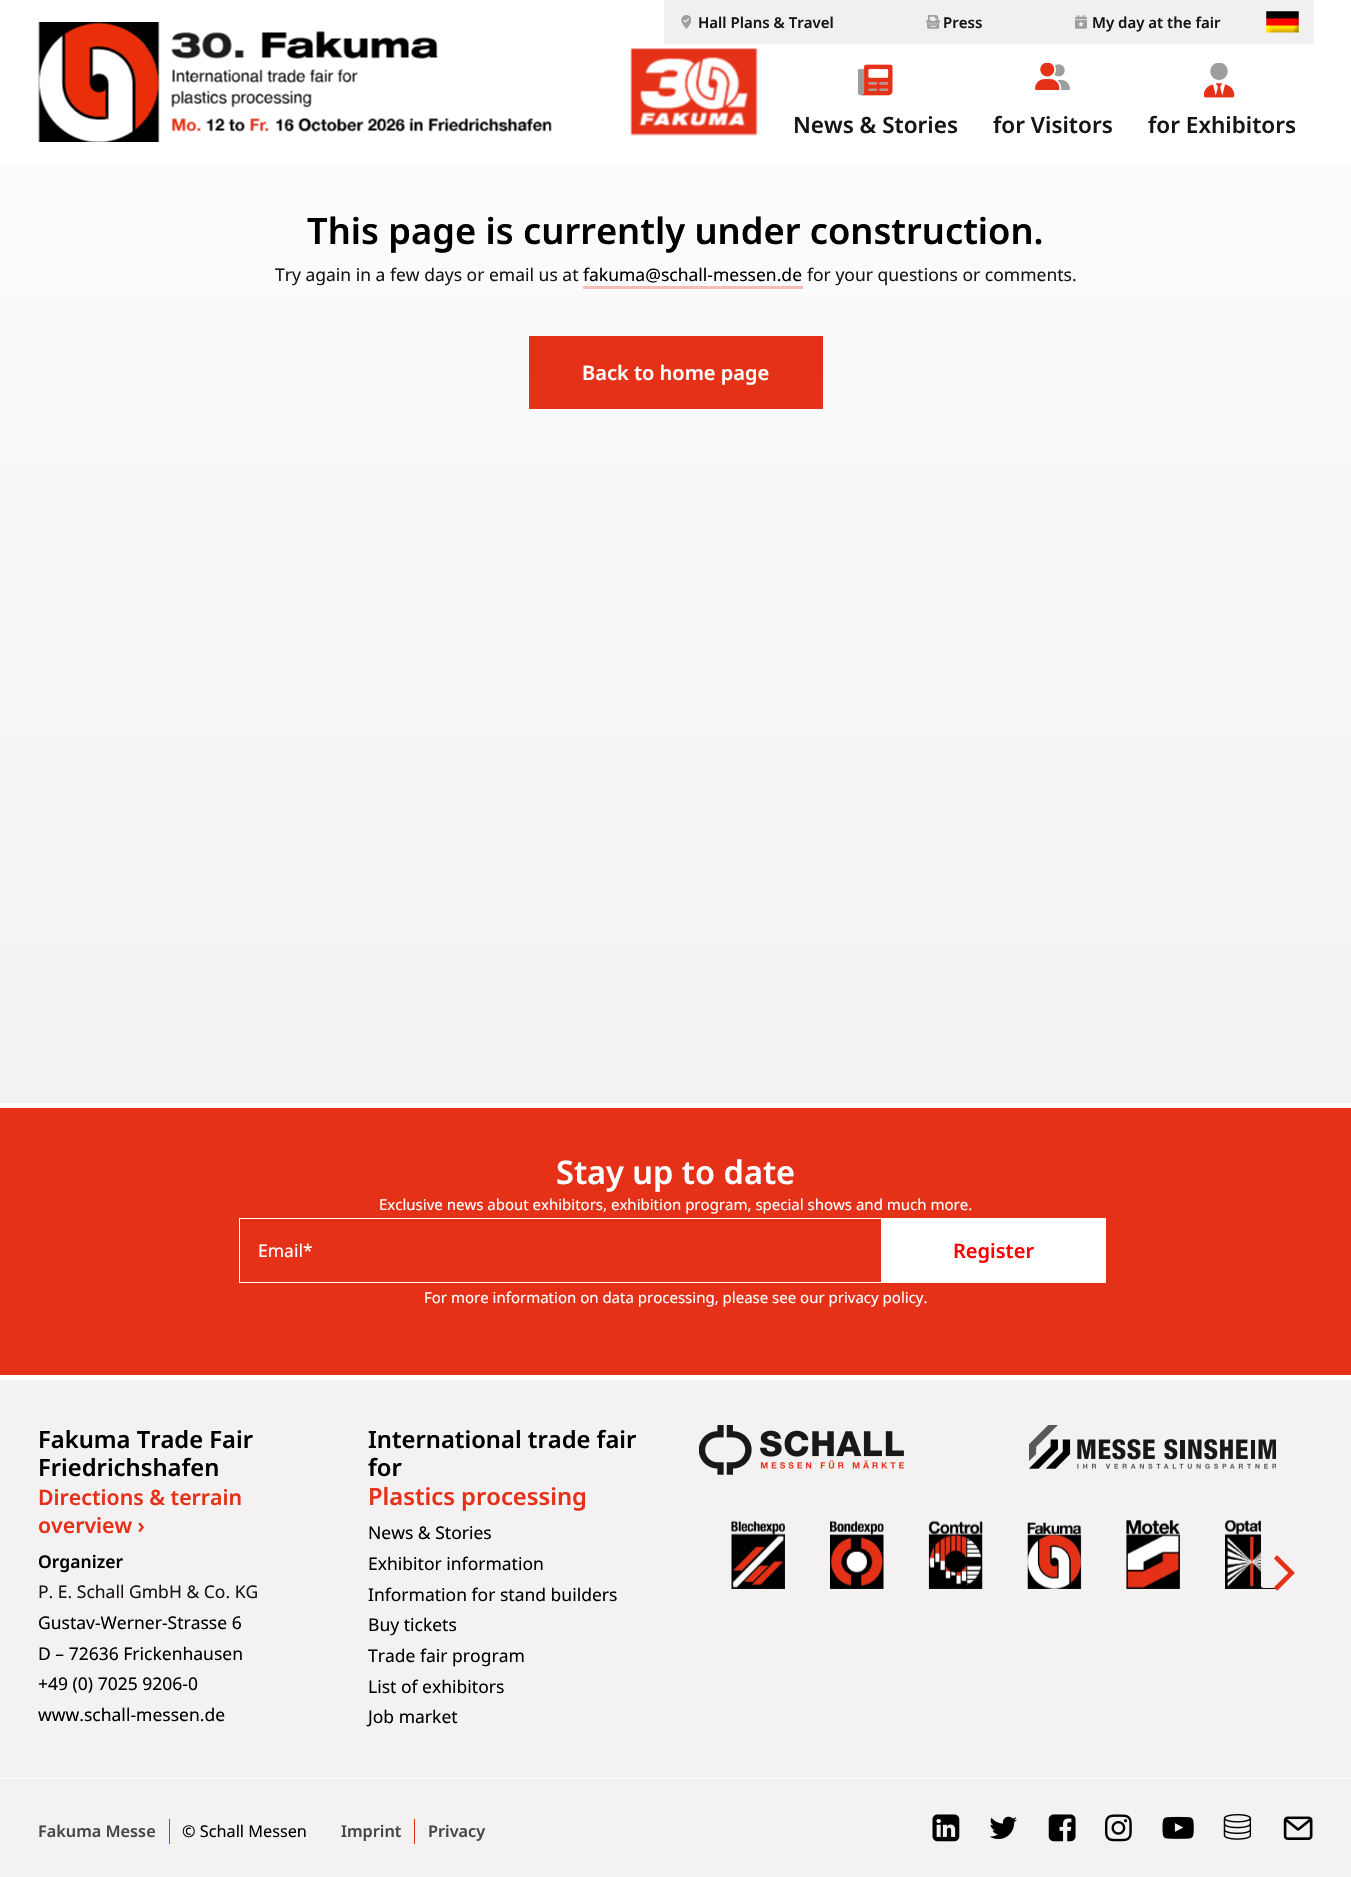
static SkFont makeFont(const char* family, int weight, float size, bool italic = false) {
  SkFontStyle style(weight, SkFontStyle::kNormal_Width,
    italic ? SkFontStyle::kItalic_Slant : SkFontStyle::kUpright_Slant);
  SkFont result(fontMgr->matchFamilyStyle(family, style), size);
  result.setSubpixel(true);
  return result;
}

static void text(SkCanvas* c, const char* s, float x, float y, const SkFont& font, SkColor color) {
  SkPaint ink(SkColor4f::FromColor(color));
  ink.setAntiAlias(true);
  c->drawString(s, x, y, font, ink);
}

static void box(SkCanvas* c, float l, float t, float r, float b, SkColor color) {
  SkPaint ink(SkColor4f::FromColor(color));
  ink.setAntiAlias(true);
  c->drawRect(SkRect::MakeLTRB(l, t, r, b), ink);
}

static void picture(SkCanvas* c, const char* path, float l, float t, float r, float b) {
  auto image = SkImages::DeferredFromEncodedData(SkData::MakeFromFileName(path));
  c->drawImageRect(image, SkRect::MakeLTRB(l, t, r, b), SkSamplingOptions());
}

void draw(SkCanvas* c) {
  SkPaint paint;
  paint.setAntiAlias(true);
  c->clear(0xffffffff);
  box(c, 664, 0, 1314, 44, 0xfff0f0f0);
  picture(c, "img_01.png", 681, 15, 691, 29);
  SkFont face1 = makeFont("Noto Sans", 600, 15);
  text(c, "Hall Plans & Travel", 698, 28, face1, 0xff191515);
  picture(c, "img_02.png", 926, 15, 940, 29);
  text(c, "Press", 943, 28, face1, 0xff191515);
  picture(c, "img_03.png", 1075, 15, 1087, 29);
  text(c, "My day at the fair", 1092, 28, face1, 0xff191515);
  picture(c, "img_04.png", 1266, 11, 1299, 33);
  picture(c, "img_05.png", 38, 22, 552, 142);
  picture(c, "img_06.png", 630, 48, 758, 136);
  picture(c, "img_07.png", 858, 64, 893, 96);
  SkFont face2 = makeFont("Noto Sans", 600, 22.5f);
  text(c, "News & Stories", 793, 133, face2, 0xff191515);
  picture(c, "img_08.png", 1035, 63, 1070, 90);
  text(c, "for Visitors", 993, 133, face2, 0xff191515);
  picture(c, "img_09.png", 1204, 63, 1235, 98);
  text(c, "for Exhibitors", 1148, 133, face2, 0xff191515);
  {
    const SkColor colors[] = {0xfffcfcfc, 0xfff3f1f1};
    const float stops[] = {0, 1};
    const SkPoint ends[] = {{676, 164}, {676, 1103}};
    paint.setShader(SkGradientShader::MakeLinear(ends, colors, stops, 2, SkTileMode::kClamp));
    paint.setAlpha(255);
  }
  c->drawRect(SkRect::MakeLTRB(0, 165, 1351, 1103), paint);
  SkFont face3 = makeFont("Noto Sans", 600, 36.25f);
  text(c, "This page is currently under construction.", 307, 244, face3, 0xff000000);
  SkFont face4 = makeFont("Noto Sans", 400, 17.5f);
  text(c, "Try again in a few days or email us at", 275, 281, face4, 0xff191515);
  text(c, "fakuma@schall-messen.de", 583, 281, face4, 0xff000000);
  box(c, 583, 286, 803, 289, 0xfff4beb7);
  text(c, "for your questions or comments.", 807, 281, face4, 0xff191515);
  box(c, 529, 336, 823, 409, 0xffe43117);
  SkFont face5 = makeFont("Noto Sans", 600, 20);
  text(c, "Back to home page", 582, 380, face5, 0xffffffff);
  box(c, 0, 1108, 1351, 1375, 0xffe43117);
  SkFont face6 = makeFont("Noto Sans", 600, 32.5f);
  text(c, "Stay up to date", 556, 1184, face6, 0xffffffff);
  SkFont face7 = makeFont("Noto Sans", 400, 15);
  text(c, "Exclusive news about exhibitors, exhibition program, special shows and much more.", 379, 1210, face7, 0xffffffff);
  box(c, 240, 1219, 888, 1222, 0xffdf3016);
  paint.setStyle(SkPaint::kStroke_Style);
  paint.setStrokeWidth(1);
  paint.setShader(nullptr);
  paint.setColor(0xffffffff);
  c->drawRect(SkRect::MakeLTRB(239.5f, 1218.5f, 888.5f, 1282.5f), paint);
  text(c, "Email*", 258, 1257, face4, 0xffffffff);
  box(c, 881, 1218, 1106, 1283, 0xffffffff);
  text(c, "Register", 953, 1258, face5, 0xffff0000);
  text(c, "For more information on data processing, please see our privacy policy.", 424, 1303, face7, 0xffffffff);
  box(c, 0, 1380, 1351, 1778, 0xfff3f1f1);
  SkFont face8 = makeFont("Noto Sans", 600, 23.75f);
  text(c, "Fakuma Trade Fair", 38, 1448, face8, 0xff000000);
  text(c, "Friedrichshafen", 38, 1476, face8, 0xff000000);
  SkFont face9 = makeFont("Noto Sans", 600, 21.25f);
  text(c, "Directions & terrain", 38, 1505, face9, 0xffe43117);
  text(c, "overview ›", 38, 1533, face9, 0xffe43117);
  SkFont face10 = makeFont("Noto Sans", 600, 17.5f);
  text(c, "Organizer", 38, 1568, face10, 0xff000000);
  text(c, "P. E. Schall GmbH & Co. KG", 38, 1598, face4, 0xff191515);
  text(c, "Gustav-Werner-Strasse 6", 38, 1629, face4, 0xff000000);
  text(c, "D – 72636 Frickenhausen", 38, 1660, face4, 0xff000000);
  text(c, "+49 (0) 7025 9206-0", 38, 1690, face4, 0xff000000);
  text(c, "www.schall-messen.de", 38, 1721, face4, 0xff000000);
  text(c, "International trade fair", 368, 1448, face8, 0xff000000);
  text(c, "for", 368, 1476, face8, 0xff000000);
  text(c, "Plastics processing", 368, 1505, face8, 0xffe43117);
  text(c, "News & Stories", 368, 1539, face4, 0xff000000);
  text(c, "Exhibitor information", 368, 1570, face4, 0xff000000);
  text(c, "Information for stand builders", 368, 1601, face4, 0xff000000);
  text(c, "Buy tickets", 368, 1631, face4, 0xff000000);
  text(c, "Trade fair program", 368, 1662, face4, 0xff000000);
  text(c, "List of exhibitors", 368, 1693, face4, 0xff000000);
  text(c, "Job market", 368, 1723, face4, 0xff000000);
  picture(c, "img_10.png", 699, 1425, 904, 1475);
  picture(c, "img_11.png", 1029, 1425, 1276, 1469);
  picture(c, "img_12.png", 731, 1520, 785, 1589);
  picture(c, "img_13.png", 830, 1520, 884, 1589);
  picture(c, "img_14.png", 928, 1520, 983, 1589);
  picture(c, "img_15.png", 1027, 1522, 1082, 1589);
  picture(c, "img_16.png", 1126, 1520, 1180, 1589);
  picture(c, "img_17.png", 1225, 1520, 1276, 1589);
  paint.setStyle(SkPaint::kFill_Style);
  paint.setColor(0xfff3f1f1);
  c->drawPath(SkPathBuilder().moveTo(1263.5f, 1521).lineTo(1306, 1521).lineTo(1306, 1588).lineTo(1263.5f, 1588).cubicTo(1262, 1588, 1261, 1587, 1261, 1585.5f).lineTo(1261, 1523.5f).cubicTo(1261, 1522, 1262, 1521, 1263.5f, 1521).close().detach(), paint);
  picture(c, "img_18.png", 1274, 1555, 1295, 1591);
  box(c, 0, 1779, 1351, 1877, 0xfff3f1f1);
  box(c, 169, 1819, 170, 1844, 0xffe43117);
  SkFont face11 = makeFont("Noto Sans", 600, 16.25f);
  text(c, "Fakuma Messe", 38, 1837, face11, 0xff474747);
  SkFont face12 = makeFont("Noto Sans", 400, 16.25f);
  text(c, "© Schall Messen", 182, 1837, face12, 0xff000000);
  box(c, 414, 1819, 415, 1844, 0xffe43117);
  text(c, "Imprint", 341, 1837, face11, 0xff474747);
  text(c, "Privacy", 428, 1837, face11, 0xff474747);
  picture(c, "img_19.png", 932, 1814, 960, 1842);
  picture(c, "img_20.png", 989, 1816, 1017, 1839);
  picture(c, "img_21.png", 1048, 1814, 1076, 1842);
  picture(c, "img_22.png", 1105, 1814, 1132, 1842);
  picture(c, "img_23.png", 1162, 1816, 1194, 1839);
  picture(c, "img_24.png", 1223, 1814, 1252, 1840);
  picture(c, "img_25.png", 1283, 1816, 1313, 1840);
}
